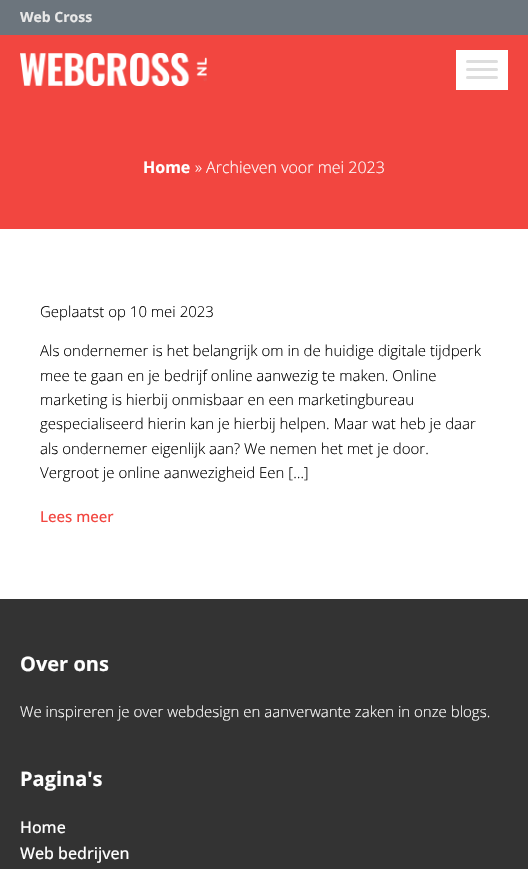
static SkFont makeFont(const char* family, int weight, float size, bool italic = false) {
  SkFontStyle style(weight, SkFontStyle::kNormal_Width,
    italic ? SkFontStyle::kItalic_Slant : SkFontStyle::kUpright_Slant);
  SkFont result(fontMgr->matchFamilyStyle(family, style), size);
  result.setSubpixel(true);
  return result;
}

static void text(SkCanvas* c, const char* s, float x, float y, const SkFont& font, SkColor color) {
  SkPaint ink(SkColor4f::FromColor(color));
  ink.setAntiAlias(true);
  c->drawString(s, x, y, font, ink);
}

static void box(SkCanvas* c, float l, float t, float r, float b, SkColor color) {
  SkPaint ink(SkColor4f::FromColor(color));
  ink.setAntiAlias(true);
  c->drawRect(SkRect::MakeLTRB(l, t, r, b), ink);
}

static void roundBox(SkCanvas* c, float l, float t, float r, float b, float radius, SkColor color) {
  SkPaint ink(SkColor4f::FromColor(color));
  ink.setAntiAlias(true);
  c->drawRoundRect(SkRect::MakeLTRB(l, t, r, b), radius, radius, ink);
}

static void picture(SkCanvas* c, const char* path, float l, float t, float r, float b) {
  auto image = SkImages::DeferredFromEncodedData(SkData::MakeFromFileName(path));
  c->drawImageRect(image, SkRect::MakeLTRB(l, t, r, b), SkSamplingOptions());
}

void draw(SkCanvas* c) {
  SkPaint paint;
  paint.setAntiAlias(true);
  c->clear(0xffffffff);
  box(c, 0, 0, 528, 35, 0xff6c757d);
  SkFont face1 = makeFont("Open Sans", 700, 14);
  text(c, "Web Cross", 20, 22, face1, 0xffe8e8e8);
  box(c, 0, 35, 528, 229, 0xfff24640);
  picture(c, "img_01.png", 20, 53, 207, 86);
  box(c, 456, 50, 508, 90, 0xffffffff);
  roundBox(c, 466, 60, 498, 63, 1.5f, 0xffdddddd);
  roundBox(c, 466, 68, 498, 71, 1.5f, 0xffdddddd);
  roundBox(c, 466, 76, 498, 79, 1.5f, 0xffdddddd);
  SkFont face2 = makeFont("Open Sans", 700, 16);
  text(c, "Home", 143, 173, face2, 0xffffffff);
  SkFont face3 = makeFont("Open Sans", 300, 16);
  text(c, "» Archieven voor mei 2023", 195, 173, face3, 0xffffffff);
  SkFont face4 = makeFont("Open Sans", 300, 15);
  text(c, "Geplaatst op 10 mei 2023", 40, 317, face4, 0xff000000);
  text(c, "Als ondernemer is het belangrijk om in de huidige digitale tijdperk", 40, 356, face4, 0xff000000);
  text(c, "mee te gaan en je bedrijf online aanwezig te maken. Online", 40, 381, face4, 0xff000000);
  text(c, "marketing is hierbij onmisbaar en een marketingbureau", 40, 405, face4, 0xff000000);
  text(c, "gespecialiseerd hierin kan je hierbij helpen. Maar wat heb je daar", 40, 429, face4, 0xff000000);
  text(c, "als ondernemer eigenlijk aan? We nemen het met je door.", 40, 454, face4, 0xff000000);
  text(c, "Vergroot je online aanwezigheid Een […]", 40, 478, face4, 0xff000000);
  SkFont face5 = makeFont("Open Sans", 500, 15);
  text(c, "Lees meer", 40, 522, face5, 0xfff24640);
  box(c, 0, 599, 528, 869, 0xff333333);
  SkFont face6 = makeFont("Open Sans", 700, 20);
  text(c, "Over ons", 20, 671, face6, 0xffffffff);
  text(c, "We inspireren je over webdesign en aanverwante zaken in onze blogs.", 20, 717, face4, 0xffffffff);
  text(c, "Pagina's", 20, 786, face6, 0xffffffff);
  SkFont face7 = makeFont("Open Sans", 500, 16);
  text(c, "Home", 20, 833, face7, 0xffffffff);
  text(c, "Web bedrijven", 20, 859, face7, 0xffffffff);
}
